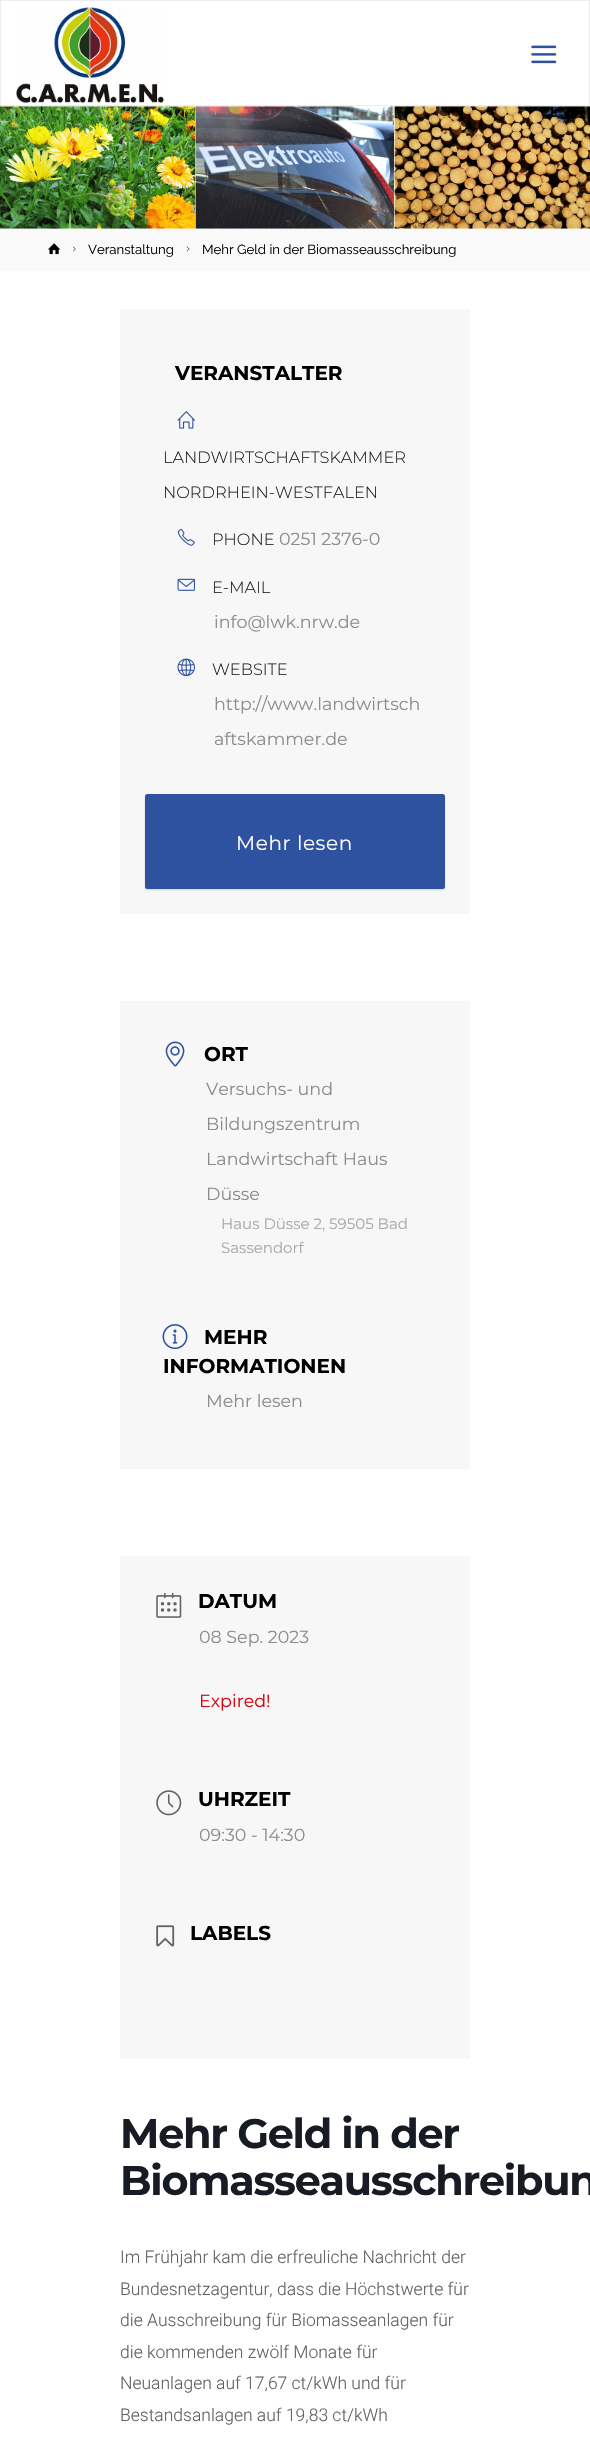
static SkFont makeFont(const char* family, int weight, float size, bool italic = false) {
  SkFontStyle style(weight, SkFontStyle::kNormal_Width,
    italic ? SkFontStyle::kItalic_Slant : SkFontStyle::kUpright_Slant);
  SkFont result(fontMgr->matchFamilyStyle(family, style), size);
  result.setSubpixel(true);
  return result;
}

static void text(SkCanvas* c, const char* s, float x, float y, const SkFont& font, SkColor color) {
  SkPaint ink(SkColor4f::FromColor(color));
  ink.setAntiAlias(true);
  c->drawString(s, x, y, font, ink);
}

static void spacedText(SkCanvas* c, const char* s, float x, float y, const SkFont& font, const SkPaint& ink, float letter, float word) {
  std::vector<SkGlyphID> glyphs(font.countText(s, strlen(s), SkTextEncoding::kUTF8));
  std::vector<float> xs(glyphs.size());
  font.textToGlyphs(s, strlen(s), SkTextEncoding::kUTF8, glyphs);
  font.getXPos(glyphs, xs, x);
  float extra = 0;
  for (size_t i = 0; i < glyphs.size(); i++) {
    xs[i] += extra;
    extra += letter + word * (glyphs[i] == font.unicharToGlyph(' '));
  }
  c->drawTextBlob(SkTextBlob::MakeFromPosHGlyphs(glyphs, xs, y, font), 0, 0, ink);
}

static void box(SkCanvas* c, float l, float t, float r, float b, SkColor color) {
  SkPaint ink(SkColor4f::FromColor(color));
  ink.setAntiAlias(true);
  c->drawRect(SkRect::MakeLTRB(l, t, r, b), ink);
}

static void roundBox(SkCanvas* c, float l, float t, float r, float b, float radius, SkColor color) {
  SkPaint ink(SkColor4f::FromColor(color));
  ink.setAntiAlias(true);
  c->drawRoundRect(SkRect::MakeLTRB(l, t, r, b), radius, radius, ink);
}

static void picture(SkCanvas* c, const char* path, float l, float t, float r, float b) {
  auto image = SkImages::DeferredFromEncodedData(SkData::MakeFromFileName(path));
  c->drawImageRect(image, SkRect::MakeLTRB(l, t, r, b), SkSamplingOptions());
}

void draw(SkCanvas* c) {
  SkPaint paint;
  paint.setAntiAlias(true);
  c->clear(0xffffffff);
  paint.setStyle(SkPaint::kStroke_Style);
  paint.setStrokeWidth(1);
  paint.setColor(0xffededed);
  c->drawRect(SkRect::MakeLTRB(0.5f, 0.5f, 589.5f, 105.5f), paint);
  picture(c, "img_01.png", 16, 7, 164, 103);
  picture(c, "img_02.png", 531, 45, 557, 64);
  picture(c, "img_03.png", 0, 106, 590, 229);
  box(c, 0, 229, 590, 271, 0xfff9f9f9);
  picture(c, "img_04.png", 48, 243, 60, 255);
  picture(c, "img_05.png", 73, 246, 76, 252);
  SkFont face1 = makeFont("Raleway", 400, 13.2f);
  text(c, "Veranstaltung", 88, 254, face1, 0xff000000);
  picture(c, "img_06.png", 186, 246, 190, 252);
  text(c, "Mehr Geld in der Biomasseausschreibung", 202, 254, face1, 0xff000000);
  box(c, 120, 309, 470, 914, 0xfff7f7f7);
  SkFont face2 = makeFont("Montserrat", 700, 20);
  text(c, "VERANSTALTER", 175, 380, face2, 0xff000000);
  picture(c, "img_07.png", 177, 411, 195, 429);
  SkFont face3 = makeFont("Montserrat", 300, 16.25f);
  text(c, "LANDWIRTSCHAFTSKAMMER", 163, 463, face3, 0xff222222);
  text(c, "NORDRHEIN-WESTFALEN", 163, 498, face3, 0xff222222);
  picture(c, "img_08.png", 177, 528, 195, 546);
  text(c, "PHONE", 212, 545, face3, 0xff222222);
  SkFont face4 = makeFont("Montserrat", 400, 17.5f);
  text(c, "0251 2376-0", 279, 545, face4, 0xff8d8d8d);
  picture(c, "img_09.png", 177, 578, 195, 591);
  text(c, "E-MAIL", 212, 593, face3, 0xff222222);
  text(c, "info@lwk.nrw.de", 214, 628, face4, 0xff8d8d8d);
  picture(c, "img_10.png", 177, 658, 195, 677);
  text(c, "WEBSITE", 212, 675, face3, 0xff222222);
  text(c, "http://www.landwirtsch", 214, 710, face4, 0xff8d8d8d);
  text(c, "aftskammer.de", 214, 745, face4, 0xff8d8d8d);
  paint.setStyle(SkPaint::kFill_Style);
  paint.setColor(0x26000000);
  paint.setMaskFilter(SkMaskFilter::MakeBlur(kNormal_SkBlurStyle, 1));
  c->drawRoundRect(SkRect::MakeLTRB(145, 795, 445, 890), 2.5f, 2.5f, paint);
  paint.setMaskFilter(nullptr);
  roundBox(c, 145, 794, 445, 889, 2.5f, 0xff2f52a0);
  SkFont face5 = makeFont("Montserrat", 400, 20);
  paint.setColor(0xffffffff);
  spacedText(c, "Mehr lesen", 236, 850, face5, paint, 0.6f, 0);
  box(c, 120, 1001, 470, 1469, 0xfff7f7f7);
  picture(c, "img_11.png", 165, 1041, 185, 1067);
  text(c, "ORT", 204, 1061, face2, 0xff000000);
  text(c, "Versuchs- und", 206, 1095, face4, 0xff8d8d8d);
  text(c, "Bildungszentrum", 206, 1130, face4, 0xff8d8d8d);
  text(c, "Landwirtschaft Haus", 206, 1165, face4, 0xff8d8d8d);
  text(c, "Düsse", 206, 1200, face4, 0xff8d8d8d);
  SkFont face6 = makeFont("Montserrat", 400, 15);
  text(c, "Haus Düsse 2, 59505 Bad", 221, 1229, face6, 0xffa9a9a9);
  text(c, "Sassendorf", 221, 1253, face6, 0xffa9a9a9);
  picture(c, "img_12.png", 162, 1324, 188, 1349);
  text(c, "MEHR", 204, 1344, face2, 0xff000000);
  text(c, "INFORMATIONEN", 163, 1373, face2, 0xff000000);
  text(c, "Mehr lesen", 206, 1407, face4, 0xff8d8d8d);
  box(c, 120, 1556, 470, 2059, 0xfff7f7f7);
  picture(c, "img_13.png", 156, 1592, 182, 1618);
  text(c, "DATUM", 198, 1608, face2, 0xff000000);
  text(c, "08 Sep. 2023", 199, 1643, face4, 0xff8d8d8d);
  text(c, "Expired!", 199, 1707, face4, 0xffd8000c);
  picture(c, "img_14.png", 156, 1790, 182, 1816);
  text(c, "UHRZEIT", 198, 1806, face2, 0xff000000);
  text(c, "09:30 - 14:30", 199, 1841, face4, 0xff8d8d8d);
  picture(c, "img_15.png", 156, 1925, 175, 1947);
  text(c, "LABELS", 190, 1940, face2, 0xff000000);
  SkFont face7 = makeFont("Montserrat", 700, 41.25f);
  paint.setColor(0xff171c24);
  spacedText(c, "Mehr Geld in der", 120, 2148, face7, paint, -1.25f, 0);
  spacedText(c, "Biomasseausschreibun", 120, 2195, face7, paint, -1.25f, 0);
  SkFont face8 = makeFont("Roboto", 300, 17.5f);
  text(c, "Im Frühjahr kam die erfreuliche Nachricht der", 120, 2263, face8, 0xff616161);
  text(c, "Bundesnetzagentur, dass die Höchstwerte für", 120, 2295, face8, 0xff616161);
  text(c, "die Ausschreibung für Biomasseanlagen für", 120, 2326, face8, 0xff616161);
  text(c, "die kommenden zwölf Monate für", 120, 2358, face8, 0xff616161);
  text(c, "Neuanlagen auf 17,67 ct/kWh und für", 120, 2389, face8, 0xff616161);
  text(c, "Bestandsanlagen auf 19,83 ct/kWh", 120, 2421, face8, 0xff616161);
}
